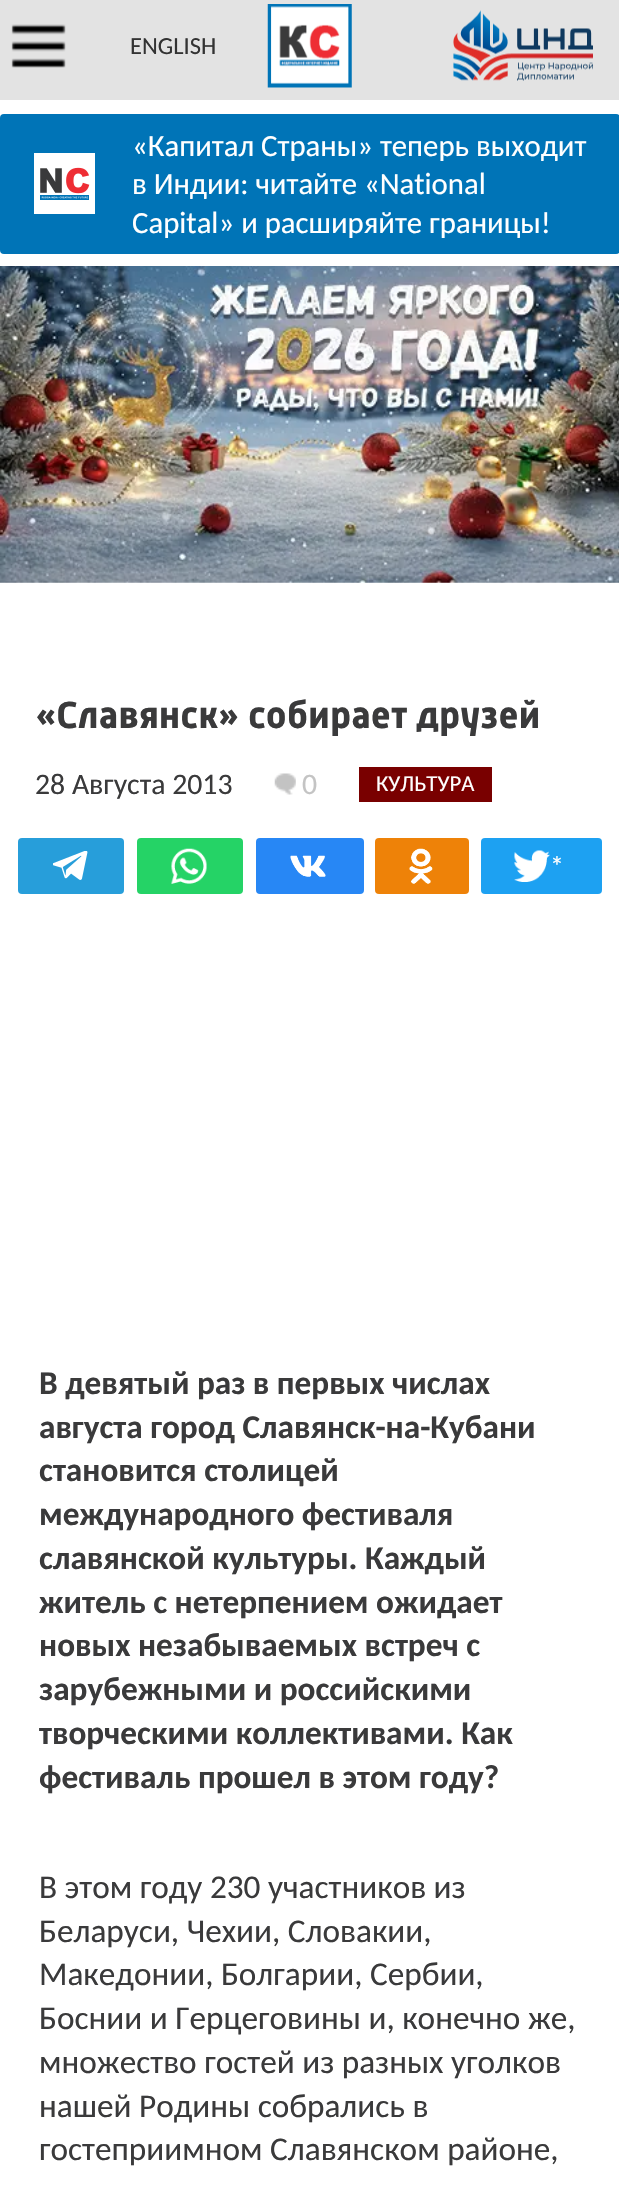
static SkFont makeFont(const char* family, int weight, float size, bool italic = false) {
  SkFontStyle style(weight, SkFontStyle::kNormal_Width,
    italic ? SkFontStyle::kItalic_Slant : SkFontStyle::kUpright_Slant);
  SkFont result(fontMgr->matchFamilyStyle(family, style), size);
  result.setSubpixel(true);
  return result;
}

static void text(SkCanvas* c, const char* s, float x, float y, const SkFont& font, SkColor color) {
  SkPaint ink(SkColor4f::FromColor(color));
  ink.setAntiAlias(true);
  c->drawString(s, x, y, font, ink);
}

static void box(SkCanvas* c, float l, float t, float r, float b, SkColor color) {
  SkPaint ink(SkColor4f::FromColor(color));
  ink.setAntiAlias(true);
  c->drawRect(SkRect::MakeLTRB(l, t, r, b), ink);
}

static void roundBox(SkCanvas* c, float l, float t, float r, float b, float radius, SkColor color) {
  SkPaint ink(SkColor4f::FromColor(color));
  ink.setAntiAlias(true);
  c->drawRoundRect(SkRect::MakeLTRB(l, t, r, b), radius, radius, ink);
}

static void picture(SkCanvas* c, const char* path, float l, float t, float r, float b) {
  auto image = SkImages::DeferredFromEncodedData(SkData::MakeFromFileName(path));
  c->drawImageRect(image, SkRect::MakeLTRB(l, t, r, b), SkSamplingOptions());
}

void draw(SkCanvas* c) {
  SkPaint paint;
  paint.setAntiAlias(true);
  c->clear(0xffffffff);
  box(c, 0, 0, 619, 100, 0xffe3e3e3);
  picture(c, "img_01.png", 11, 24, 66, 68);
  SkFont face1 = makeFont("Carlito", 400, 24.5f);
  text(c, "ENGLISH", 130, 54, face1, 0xff333333);
  picture(c, "img_02.png", 267, 4, 352, 88);
  picture(c, "img_03.png", 453, 10, 593, 81);
  roundBox(c, 0, 114, 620, 254, 4, 0xff0074b7);
  picture(c, "img_04.png", 34, 153, 95, 214);
  SkFont face2 = makeFont("Carlito", 400, 30.75f);
  text(c, "«Капитал Страны» теперь выходит", 132, 156, face2, 0xffffffff);
  text(c, "в Индии: читайте «National", 132, 194, face2, 0xffffffff);
  text(c, "Capital» и расширяйте границы!", 132, 233, face2, 0xffffffff);
  picture(c, "img_05.png", 0, 266, 619, 583);
  SkFont face3 = makeFont("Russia", 700, 38.5f);
  text(c, "«Славянск» собирает друзей", 35, 728, face3, 0xff3a3a3b);
  SkFont face4 = makeFont("Carlito", 400, 29.75f);
  text(c, "28 Августа 2013", 35, 794, face4, 0xff3a3a3b);
  picture(c, "img_06.png", 274, 773, 296, 795);
  text(c, "0", 302, 794, face4, 0xffc4c4c4);
  box(c, 359, 767, 492, 802, 0xff790000);
  SkFont face5 = makeFont("Carlito", 400, 22.75f);
  text(c, "КУЛЬТУРА", 376, 791, face5, 0xffffffff);
  roundBox(c, 18, 838, 124, 894, 4, 0xff279eda);
  picture(c, "img_07.png", 53, 851, 88, 880);
  roundBox(c, 137, 838, 243, 894, 4, 0xff25d366);
  picture(c, "img_08.png", 171, 848, 207, 884);
  roundBox(c, 256, 838, 364, 894, 4, 0xff2787f5);
  picture(c, "img_09.png", 290, 855, 326, 877);
  roundBox(c, 375, 838, 469, 894, 4, 0xffee8208);
  picture(c, "img_10.png", 409, 848, 433, 884);
  roundBox(c, 481, 838, 602, 894, 4, 0xff1da1f2);
  picture(c, "img_11.png", 514, 850, 550, 882);
  SkFont face6 = makeFont("Carlito", 400, 28);
  text(c, "*", 550, 876, face6, 0xffffffff);
  SkFont face7 = makeFont("Carlito", 700, 33.25f);
  text(c, "В девятый раз в первых числах", 39, 1394, face7, 0xff3a3a3b);
  text(c, "августа город Славянск-на-Кубани", 39, 1438, face7, 0xff3a3a3b);
  text(c, "становится столицей", 39, 1481, face7, 0xff3a3a3b);
  text(c, "международного фестиваля", 39, 1525, face7, 0xff3a3a3b);
  text(c, "славянской культуры. Каждый", 39, 1569, face7, 0xff3a3a3b);
  text(c, "житель с нетерпением ожидает", 39, 1613, face7, 0xff3a3a3b);
  text(c, "новых незабываемых встреч с", 39, 1656, face7, 0xff3a3a3b);
  text(c, "зарубежными и российскими", 39, 1700, face7, 0xff3a3a3b);
  text(c, "творческими коллективами. Как", 39, 1744, face7, 0xff3a3a3b);
  text(c, "фестиваль прошел в этом году?", 39, 1788, face7, 0xff3a3a3b);
  SkFont face8 = makeFont("Carlito", 400, 33.25f);
  text(c, "В этом году 230 участников из", 39, 1898, face8, 0xff3a3a3b);
  text(c, "Беларуси, Чехии, Словакии,", 39, 1942, face8, 0xff3a3a3b);
  text(c, "Македонии, Болгарии, Сербии,", 39, 1985, face8, 0xff3a3a3b);
  text(c, "Боснии и Герцеговины и, конечно же,", 39, 2029, face8, 0xff3a3a3b);
  text(c, "множество гостей из разных уголков", 39, 2073, face8, 0xff3a3a3b);
  text(c, "нашей Родины собрались в", 39, 2117, face8, 0xff3a3a3b);
  text(c, "гостеприимном Славянском районе,", 39, 2160, face8, 0xff3a3a3b);
}
